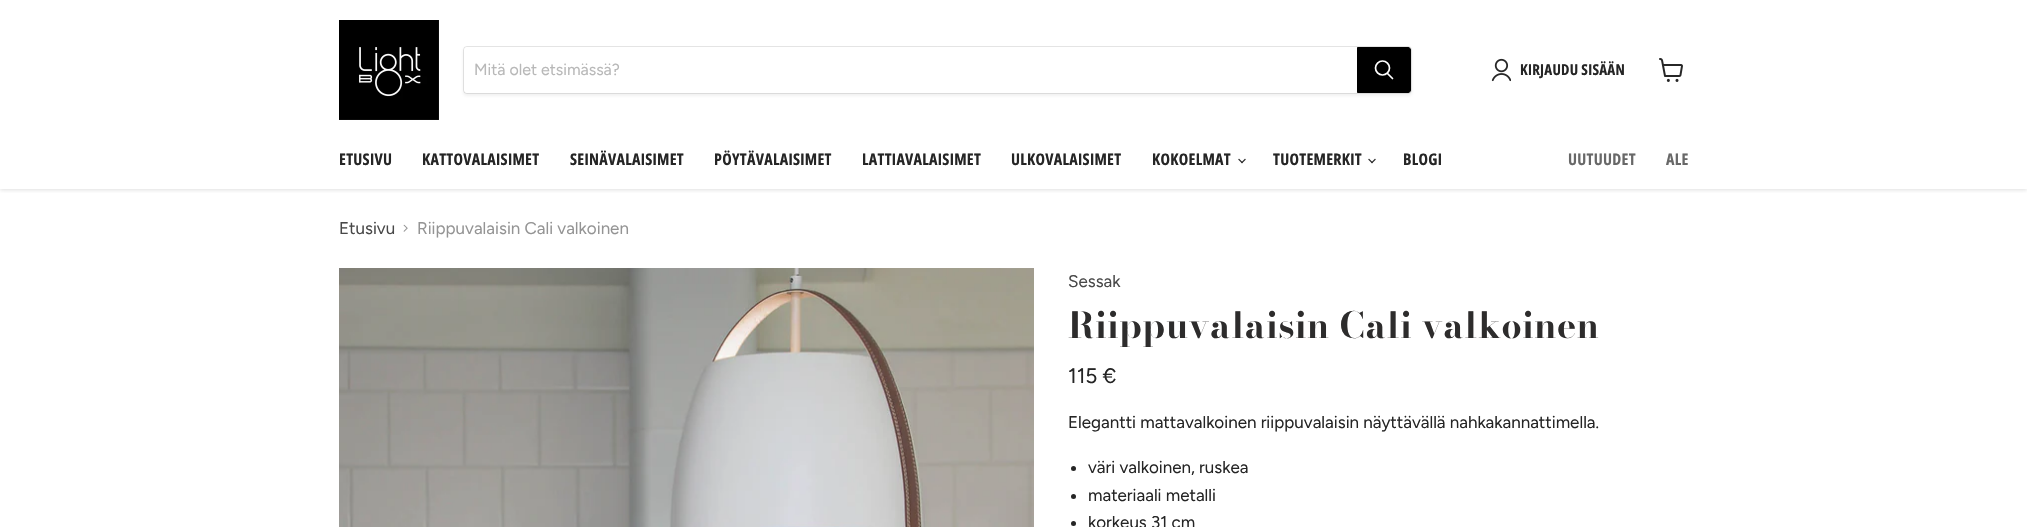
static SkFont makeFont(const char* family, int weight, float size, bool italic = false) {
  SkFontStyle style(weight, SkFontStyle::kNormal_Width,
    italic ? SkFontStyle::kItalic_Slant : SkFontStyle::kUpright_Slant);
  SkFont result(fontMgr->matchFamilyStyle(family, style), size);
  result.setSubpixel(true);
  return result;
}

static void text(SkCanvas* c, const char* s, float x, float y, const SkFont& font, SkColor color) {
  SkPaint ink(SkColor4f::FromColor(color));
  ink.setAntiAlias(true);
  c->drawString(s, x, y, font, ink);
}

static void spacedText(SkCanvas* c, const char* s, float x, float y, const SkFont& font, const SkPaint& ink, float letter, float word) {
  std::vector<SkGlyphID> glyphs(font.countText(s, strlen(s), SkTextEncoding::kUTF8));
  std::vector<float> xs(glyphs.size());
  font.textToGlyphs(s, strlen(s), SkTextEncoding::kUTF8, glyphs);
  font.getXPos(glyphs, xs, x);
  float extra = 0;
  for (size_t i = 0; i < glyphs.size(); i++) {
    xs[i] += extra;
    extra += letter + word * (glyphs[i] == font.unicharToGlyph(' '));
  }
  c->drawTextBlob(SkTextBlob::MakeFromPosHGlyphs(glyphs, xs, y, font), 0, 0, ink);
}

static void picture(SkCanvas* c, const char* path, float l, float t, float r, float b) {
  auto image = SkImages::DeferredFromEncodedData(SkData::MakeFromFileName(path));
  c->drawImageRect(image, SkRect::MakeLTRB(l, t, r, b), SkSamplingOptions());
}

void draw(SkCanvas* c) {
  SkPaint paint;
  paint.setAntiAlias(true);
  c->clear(0xffffffff);
  c->save();
  c->clipRect(SkRect::MakeLTRB(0, 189, 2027, 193));
  paint.setColor(0x40808080);
  paint.setMaskFilter(SkMaskFilter::MakeBlur(kNormal_SkBlurStyle, 2));
  c->drawRect(SkRect::MakeLTRB(0, 1, 2027, 190), paint);
  paint.setMaskFilter(nullptr);
  c->restore();
  picture(c, "img_01.png", 339, 20, 439, 120);
  paint.setColor(0x1c808080);
  paint.setMaskFilter(SkMaskFilter::MakeBlur(kNormal_SkBlurStyle, 1.5f));
  c->drawRoundRect(SkRect::MakeLTRB(463, 48, 1412, 96), 4, 4, paint);
  paint.setMaskFilter(nullptr);
  paint.setStyle(SkPaint::kStroke_Style);
  paint.setStrokeWidth(1);
  paint.setColor(0x33808080);
  c->drawRoundRect(SkRect::MakeLTRB(463.5f, 46.5f, 1411.5f, 93.5f), 3.5f, 3.5f, paint);
  paint.setStyle(SkPaint::kFill_Style);
  paint.setColor(0xffffffff);
  c->drawPath(SkPathBuilder().moveTo(467, 47).lineTo(1357, 47).lineTo(1357, 93).lineTo(467, 93).cubicTo(465.5f, 93, 464, 91.5f, 464, 90).lineTo(464, 50).cubicTo(464, 48.5f, 465.5f, 47, 467, 47).close().detach(), paint);
  SkFont face1 = makeFont("Figtree", 400, 16);
  text(c, "Mitä olet etsimässä?", 474, 75, face1, 0xffb8b8b8);
  paint.setColor(0xff000000);
  c->drawPath(SkPathBuilder().moveTo(1357.5f, 47.5f).lineTo(1408, 47.5f).cubicTo(1409.5f, 47.5f, 1410.5f, 48.5f, 1410.5f, 50).lineTo(1410.5f, 90).cubicTo(1410.5f, 91.5f, 1409.5f, 92.5f, 1408, 92.5f).lineTo(1357.5f, 92.5f).close().detach(), paint);
  paint.setStyle(SkPaint::kStroke_Style);
  c->drawPath(SkPathBuilder().moveTo(1357.5f, 47.5f).lineTo(1408, 47.5f).cubicTo(1409.5f, 47.5f, 1410.5f, 48.5f, 1410.5f, 50).lineTo(1410.5f, 90).cubicTo(1410.5f, 91.5f, 1409.5f, 92.5f, 1408, 92.5f).lineTo(1357.5f, 92.5f).close().detach(), paint);
  paint.setStrokeWidth(1.7f);
  paint.setStrokeCap(SkPaint::kRound_Cap);
  paint.setColor(0xffffffff);
  c->drawPath(SkPathBuilder().moveTo(1392.5f, 78.5f).lineTo(1387.5f, 73.5f).detach(), paint);
  paint.setStrokeCap(SkPaint::kButt_Cap);
  c->drawCircle(1382.5f, 68, 7, paint);
  picture(c, "img_02.png", 1491, 58, 1511, 82);
  SkFont face2 = makeFont("Open Sans Condensed", 700, 15);
  paint.setStyle(SkPaint::kFill_Style);
  paint.setColor(0xff252525);
  spacedText(c, "KIRJAUDU SISÄÄN", 1520, 75, face2, paint, 0.25f, 0);
  picture(c, "img_03.png", 1659, 58, 1683, 82);
  SkFont face3 = makeFont("Open Sans Condensed", 700, 16);
  spacedText(c, "ETUSIVU", 339, 165, face3, paint, 0.3f, 0);
  spacedText(c, "KATTOVALAISIMET", 422, 165, face3, paint, 0.3f, 0);
  spacedText(c, "SEINÄVALAISIMET", 570, 165, face3, paint, 0.3f, 0);
  spacedText(c, "PÖYTÄVALAISIMET", 714, 165, face3, paint, 0.3f, 0);
  spacedText(c, "LATTIAVALAISIMET", 862, 165, face3, paint, 0.3f, 0);
  spacedText(c, "ULKOVALAISIMET", 1011, 165, face3, paint, 0.3f, 0);
  spacedText(c, "KOKOELMAT", 1152, 165, face3, paint, 0.3f, 0);
  picture(c, "img_04.png", 1238, 158, 1246, 164);
  spacedText(c, "TUOTEMERKIT", 1273, 165, face3, paint, 0.3f, 0);
  picture(c, "img_04.png", 1368, 158, 1376, 164);
  spacedText(c, "BLOGI", 1403, 165, face3, paint, 0.3f, 0);
  paint.setColor(0xff686868);
  spacedText(c, "UUTUUDET", 1568, 165, face3, paint, 0.3f, 0);
  spacedText(c, "ALE", 1666, 165, face3, paint, 0.3f, 0);
  SkFont face4 = makeFont("Figtree", 400, 17);
  text(c, "Etusivu", 339, 234, face4, 0xff484848);
  picture(c, "img_05.png", 403, 224, 408, 232);
  text(c, "Riippuvalaisin Cali valkoinen", 417, 234, face4, 0xff949494);
  picture(c, "img_06.png", 999, 268, 1034, 527);
  picture(c, "img_07.png", 339, 268, 999, 527);
  text(c, "Sessak", 1068, 287, face4, 0xff484848);
  SkFont face5 = makeFont("Bodoni Moda", 700, 35.75f);
  paint.setColor(0xff2d2c2c);
  spacedText(c, "Riippuvalaisin Cali valkoinen", 1068, 338, face5, paint, 0.7f, 0);
  SkFont face6 = makeFont("Figtree", 400, 21);
  text(c, "115 €", 1068, 383, face6, 0xff252525);
  text(c, "Elegantti mattavalkoinen riippuvalaisin näyttävällä nahkakannattimella.", 1068, 428, face4, 0xff252525);
  paint.setColor(0xff252525);
  c->drawCircle(1073.5f, 468.5f, 2.5f, paint);
  text(c, "väri valkoinen, ruskea", 1088, 473, face4, 0xff252525);
  c->drawCircle(1073.5f, 496.5f, 2.5f, paint);
  text(c, "materiaali metalli", 1088, 501, face4, 0xff252525);
  c->drawCircle(1073.5f, 523.5f, 2.5f, paint);
  text(c, "korkeus 31 cm", 1088, 528, face4, 0xff252525);
}
